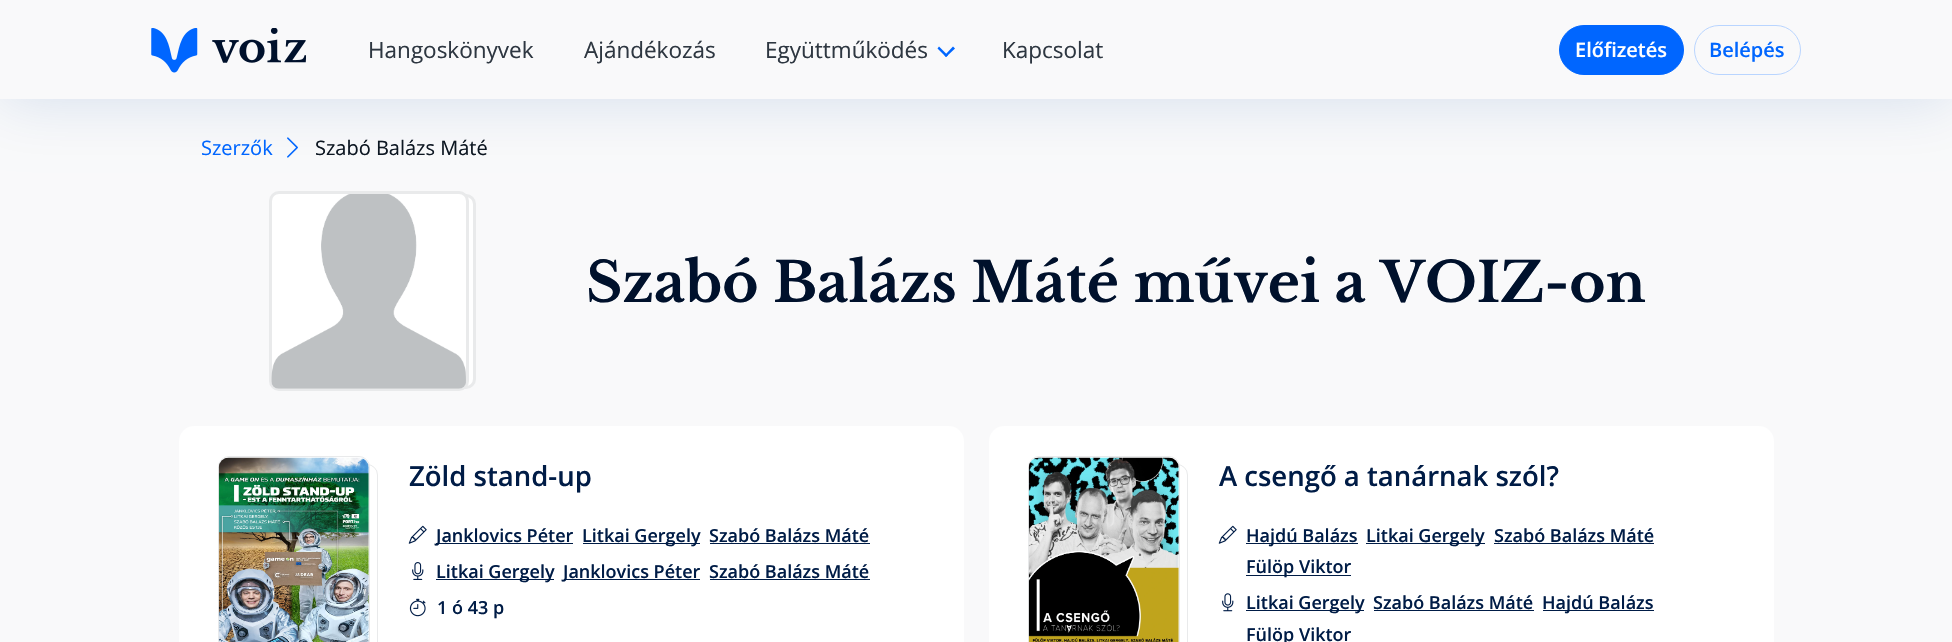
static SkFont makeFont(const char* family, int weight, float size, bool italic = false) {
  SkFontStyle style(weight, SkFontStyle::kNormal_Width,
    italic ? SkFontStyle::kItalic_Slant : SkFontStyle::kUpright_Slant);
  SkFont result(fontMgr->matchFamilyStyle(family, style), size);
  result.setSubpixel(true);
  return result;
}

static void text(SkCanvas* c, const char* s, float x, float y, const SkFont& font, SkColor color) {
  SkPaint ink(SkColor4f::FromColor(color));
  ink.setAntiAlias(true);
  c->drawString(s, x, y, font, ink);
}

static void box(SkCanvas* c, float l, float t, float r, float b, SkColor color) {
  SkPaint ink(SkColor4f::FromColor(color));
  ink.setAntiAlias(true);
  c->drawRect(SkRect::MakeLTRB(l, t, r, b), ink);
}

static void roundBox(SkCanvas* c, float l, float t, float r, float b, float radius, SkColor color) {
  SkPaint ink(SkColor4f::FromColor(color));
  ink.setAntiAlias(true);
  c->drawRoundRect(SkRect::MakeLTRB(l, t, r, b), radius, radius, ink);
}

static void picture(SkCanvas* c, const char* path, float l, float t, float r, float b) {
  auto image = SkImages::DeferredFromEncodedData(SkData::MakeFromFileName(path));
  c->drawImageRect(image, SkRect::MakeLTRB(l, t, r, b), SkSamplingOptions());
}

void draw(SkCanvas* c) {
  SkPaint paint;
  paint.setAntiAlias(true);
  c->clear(0xfff9f9fa);
  picture(c, "img_02.png", 287, 137, 298, 158);
  paint.setColor(0xffffffff);
  c->drawRoundRect(SkRect::MakeLTRB(282.5f, 195.5f, 474.5f, 387.5f), 8.5f, 8.5f, paint);
  paint.setStyle(SkPaint::kStroke_Style);
  paint.setStrokeWidth(3);
  paint.setColor(0xffe9eaeb);
  c->drawRoundRect(SkRect::MakeLTRB(282.5f, 195.5f, 474.5f, 387.5f), 8.5f, 8.5f, paint);
  paint.setStyle(SkPaint::kFill_Style);
  paint.setColor(0xffffffff);
  c->drawRoundRect(SkRect::MakeLTRB(270.5f, 192.5f, 467.5f, 389.5f), 8.5f, 8.5f, paint);
  paint.setStyle(SkPaint::kStroke_Style);
  paint.setColor(0xffe9eaeb);
  c->drawRoundRect(SkRect::MakeLTRB(270.5f, 192.5f, 467.5f, 389.5f), 8.5f, 8.5f, paint);
  paint.setStyle(SkPaint::kFill_Style);
  paint.setColor(0x260041a2);
  paint.setMaskFilter(SkMaskFilter::MakeBlur(kNormal_SkBlurStyle, 31));
  c->drawRect(SkRect::MakeLTRB(0, 0, 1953, 99), paint);
  paint.setMaskFilter(nullptr);
  box(c, 0, 0, 1952, 99, 0xfff9f9fa);
  picture(c, "img_01.png", 151, 28, 306, 73);
  SkFont face1 = makeFont("Open Sans", 400, 22.5f);
  text(c, "Hangoskönyvek", 368, 58, face1, 0xff2e3741);
  text(c, "Ajándékozás", 584, 58, face1, 0xff2e3741);
  text(c, "Együttműködés", 765, 58, face1, 0xff2e3741);
  paint.setColor(0xff0066ff);
  c->drawPath(SkPathBuilder().moveTo(953, 46.5f).lineTo(955, 48.5f).lineTo(946, 57).lineTo(944.5f, 55.5f).close().detach(), paint);
  c->drawPath(SkPathBuilder().moveTo(939, 46.5f).lineTo(948, 55.5f).lineTo(946, 57).lineTo(937.5f, 48.5f).close().detach(), paint);
  text(c, "Kapcsolat", 1002, 58, face1, 0xff2e3741);
  c->drawRoundRect(SkRect::MakeLTRB(1559.5f, 25.5f, 1683.5f, 74.5f), 24.5f, 24.5f, paint);
  paint.setStyle(SkPaint::kStroke_Style);
  paint.setStrokeWidth(1);
  c->drawRoundRect(SkRect::MakeLTRB(1559.5f, 25.5f, 1683.5f, 74.5f), 24.5f, 24.5f, paint);
  SkFont face2 = makeFont("Open Sans", 600, 20);
  text(c, "Előfizetés", 1575, 57, face2, 0xffffffff);
  paint.setColor(0xffb9d5ff);
  c->drawRoundRect(SkRect::MakeLTRB(1694.5f, 25.5f, 1800.5f, 74.5f), 24.5f, 24.5f, paint);
  text(c, "Belépés", 1709, 57, face2, 0xff0066ff);
  SkFont face3 = makeFont("Open Sans", 400, 20);
  text(c, "Szerzők", 201, 155, face3, 0xff0066ff);
  text(c, "Szabó Balázs Máté", 315, 155, face3, 0xff0d1722);
  picture(c, "img_03.png", 271, 194, 466, 389);
  SkFont face4 = makeFont("Libre Baskerville", 700, 55);
  text(c, "Szabó Balázs Máté művei a VOIZ-on", 586, 302, face4, 0xff00112c);
  roundBox(c, 179, 426, 964, 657, 15, 0xffffffff);
  paint.setColor(0xffe9eaeb);
  c->drawRoundRect(SkRect::MakeLTRB(225.5f, 464.5f, 377.5f, 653.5f), 10.5f, 10.5f, paint);
  c->drawRoundRect(SkRect::MakeLTRB(218.5f, 456.5f, 369.5f, 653.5f), 10.5f, 10.5f, paint);
  picture(c, "img_04.png", 218, 457, 369, 642);
  SkFont face5 = makeFont("Open Sans", 600, 27.5f);
  text(c, "Zöld stand-up", 409, 486, face5, 0xff001c46);
  picture(c, "img_05.png", 408, 525, 427, 544);
  box(c, 436, 543, 573, 544, 0xff001c46);
  SkFont face6 = makeFont("Open Sans", 600, 18);
  text(c, "Janklovics Péter", 436, 542, face6, 0xff001c46);
  box(c, 583, 543, 700, 544, 0xff001c46);
  text(c, "Litkai Gergely", 582, 542, face6, 0xff001c46);
  text(c, "Szabó Balázs Máté", 709, 542, face6, 0xff001c46);
  box(c, 710, 543, 870, 544, 0xff001c46);
  picture(c, "img_06.png", 412, 562, 424, 580);
  box(c, 436, 579, 554, 580, 0xff001c46);
  text(c, "Litkai Gergely", 436, 578, face6, 0xff001c46);
  box(c, 564, 579, 700, 580, 0xff001c46);
  text(c, "Janklovics Péter", 563, 578, face6, 0xff001c46);
  text(c, "Szabó Balázs Máté", 709, 578, face6, 0xff001c46);
  box(c, 710, 579, 870, 580, 0xff001c46);
  picture(c, "img_07.png", 409, 598, 426, 617);
  text(c, "1 ó 43 p", 437, 614, face6, 0xff001c46);
  roundBox(c, 989, 426, 1774, 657, 15, 0xffffffff);
  c->drawRoundRect(SkRect::MakeLTRB(1035.5f, 464.5f, 1187.5f, 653.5f), 10.5f, 10.5f, paint);
  c->drawRoundRect(SkRect::MakeLTRB(1028.5f, 456.5f, 1179.5f, 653.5f), 10.5f, 10.5f, paint);
  picture(c, "img_08.png", 1028, 457, 1179, 642);
  text(c, "A csengő a tanárnak szól?", 1219, 486, face5, 0xff001c46);
  picture(c, "img_05.png", 1218, 525, 1237, 544);
  box(c, 1246, 543, 1358, 544, 0xff001c46);
  text(c, "Hajdú Balázs", 1246, 542, face6, 0xff001c46);
  box(c, 1366, 543, 1485, 544, 0xff001c46);
  text(c, "Litkai Gergely", 1366, 542, face6, 0xff001c46);
  text(c, "Szabó Balázs Máté", 1494, 542, face6, 0xff001c46);
  box(c, 1494, 543, 1654, 544, 0xff001c46);
  box(c, 1246, 575, 1351, 576, 0xff001c46);
  text(c, "Fülöp Viktor", 1246, 573, face6, 0xff001c46);
  picture(c, "img_09.png", 1222, 593, 1234, 612);
  box(c, 1246, 610, 1364, 611, 0xff001c46);
  text(c, "Litkai Gergely", 1246, 609, face6, 0xff001c46);
  text(c, "Szabó Balázs Máté", 1373, 609, face6, 0xff001c46);
  box(c, 1374, 610, 1534, 611, 0xff001c46);
  box(c, 1543, 610, 1654, 611, 0xff001c46);
  text(c, "Hajdú Balázs", 1542, 609, face6, 0xff001c46);
  text(c, "Fülöp Viktor", 1246, 641, face6, 0xff001c46);
}
